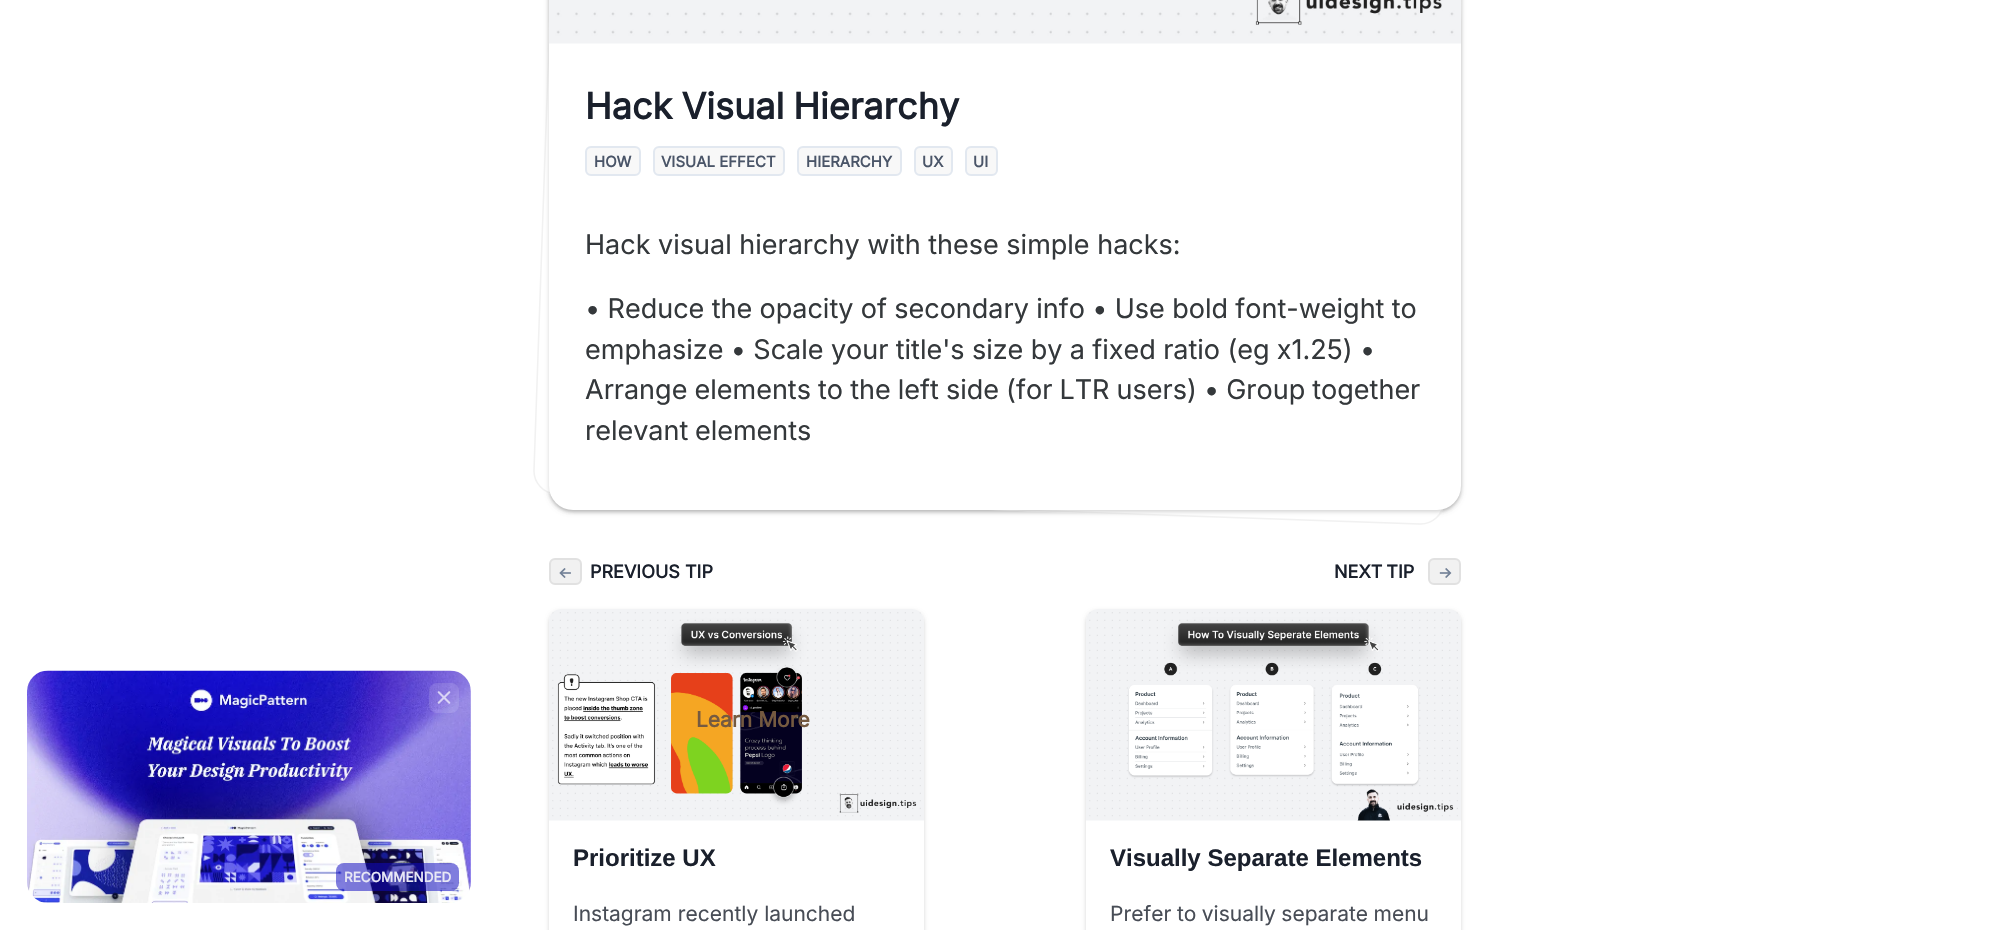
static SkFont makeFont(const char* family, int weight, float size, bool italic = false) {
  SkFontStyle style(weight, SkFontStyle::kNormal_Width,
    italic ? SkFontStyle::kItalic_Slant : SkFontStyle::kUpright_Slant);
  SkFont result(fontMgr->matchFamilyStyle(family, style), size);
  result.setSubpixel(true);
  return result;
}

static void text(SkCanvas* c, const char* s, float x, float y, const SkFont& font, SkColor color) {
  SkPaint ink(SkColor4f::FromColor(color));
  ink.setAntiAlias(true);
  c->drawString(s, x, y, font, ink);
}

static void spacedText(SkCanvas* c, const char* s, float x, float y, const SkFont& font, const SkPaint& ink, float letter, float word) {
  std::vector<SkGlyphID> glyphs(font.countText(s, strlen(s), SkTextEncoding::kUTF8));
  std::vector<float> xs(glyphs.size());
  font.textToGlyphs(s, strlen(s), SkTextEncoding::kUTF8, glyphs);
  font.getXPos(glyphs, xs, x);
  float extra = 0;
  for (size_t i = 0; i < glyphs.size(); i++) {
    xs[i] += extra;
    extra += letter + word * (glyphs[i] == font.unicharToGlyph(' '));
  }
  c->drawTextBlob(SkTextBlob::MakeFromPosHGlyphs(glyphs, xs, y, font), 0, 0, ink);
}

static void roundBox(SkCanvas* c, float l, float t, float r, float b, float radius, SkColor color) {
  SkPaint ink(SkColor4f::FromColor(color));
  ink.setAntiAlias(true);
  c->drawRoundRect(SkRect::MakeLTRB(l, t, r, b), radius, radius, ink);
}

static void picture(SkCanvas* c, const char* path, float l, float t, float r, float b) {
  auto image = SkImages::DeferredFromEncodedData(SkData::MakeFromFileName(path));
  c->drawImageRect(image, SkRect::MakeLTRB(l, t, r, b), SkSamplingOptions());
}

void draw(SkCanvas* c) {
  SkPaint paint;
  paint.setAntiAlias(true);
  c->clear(0xffffffff);
  picture(c, "img_01.png", 27, 670, 471, 903);
  roundBox(c, 429, 683, 459, 713, 8, 0x21ffffff);
  picture(c, "img_02.png", 437, 691, 451, 704);
  roundBox(c, 336, 863, 459, 891, 8, 0x870f0ac0);
  SkFont face1 = makeFont("Inter", 700, 13.5f);
  text(c, "RECOMMENDED", 344, 882, face1, 0xffe8e8f5);
  paint.setColor(0x0f000000);
  paint.setMaskFilter(SkMaskFilter::MakeBlur(kNormal_SkBlurStyle, 1.5f));
  c->drawRoundRect(SkRect::MakeLTRB(549, -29, 1461, 512), 24, 24, paint);
  paint.setMaskFilter(nullptr);
  paint.setColor(0x1a000000);
  paint.setMaskFilter(SkMaskFilter::MakeBlur(kNormal_SkBlurStyle, 2.5f));
  c->drawRoundRect(SkRect::MakeLTRB(549, -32, 1461, 512), 24, 24, paint);
  paint.setMaskFilter(nullptr);
  paint.setColor(0xffffffff);
  c->drawPath(SkPathBuilder().moveTo(590, -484).lineTo(1454, -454).cubicTo(1467, -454, 1477, -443, 1477, -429).lineTo(1444, 502).cubicTo(1444, 515, 1433, 525, 1420, 525).lineTo(556, 495).cubicTo(543, 494, 533, 483, 533, 470).lineTo(566, -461).cubicTo(566, -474, 577, -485, 590, -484).close().detach(), paint);
  paint.setStyle(SkPaint::kStroke_Style);
  paint.setStrokeWidth(1.5f);
  paint.setColor(0xfff1f1f1);
  c->drawPath(SkPathBuilder().moveTo(590.5f, -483.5f).lineTo(1454, -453.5f).cubicTo(1466.5f, -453, 1476.5f, -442, 1476, -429.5f).lineTo(1443.5f, 501.5f).cubicTo(1443.5f, 514.5f, 1432.5f, 524.5f, 1419.5f, 524).lineTo(556, 494).cubicTo(543.5f, 493.5f, 533.5f, 482.5f, 534, 470).lineTo(566.5f, -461).cubicTo(566.5f, -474, 577.5f, -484, 590.5f, -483.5f).close().detach(), paint);
  paint.setStyle(SkPaint::kFill_Style);
  paint.setColor(0x0f000000);
  paint.setMaskFilter(SkMaskFilter::MakeBlur(kNormal_SkBlurStyle, 1.5f));
  c->drawRoundRect(SkRect::MakeLTRB(549, -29, 1461, 512), 24, 24, paint);
  paint.setMaskFilter(nullptr);
  paint.setColor(0x1a000000);
  paint.setMaskFilter(SkMaskFilter::MakeBlur(kNormal_SkBlurStyle, 2));
  c->drawRoundRect(SkRect::MakeLTRB(549, -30, 1461, 512), 24, 24, paint);
  paint.setMaskFilter(nullptr);
  roundBox(c, 549, -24, 1461, 510, 24, 0xffffffff);
  picture(c, "img_03.png", 549, 0, 1461, 44);
  SkFont face2 = makeFont("Inter", 700, 36);
  paint.setColor(0xff1a202c);
  spacedText(c, "Hack Visual Hierarchy", 585, 119, face2, paint, 0, -1);
  paint.setColor(0xfff8f8f8);
  c->drawRoundRect(SkRect::MakeLTRB(586, 147, 640, 175), 5, 5, paint);
  paint.setStyle(SkPaint::kStroke_Style);
  paint.setStrokeWidth(2);
  paint.setColor(0xffe2e8f0);
  c->drawRoundRect(SkRect::MakeLTRB(586, 147, 640, 175), 5, 5, paint);
  SkFont face3 = makeFont("Inter", 700, 15);
  text(c, "HOW", 594, 167, face3, 0xff4a5568);
  paint.setStyle(SkPaint::kFill_Style);
  paint.setColor(0xfff8f8f8);
  c->drawRoundRect(SkRect::MakeLTRB(654, 147, 784, 175), 5, 5, paint);
  paint.setStyle(SkPaint::kStroke_Style);
  paint.setColor(0xffe2e8f0);
  c->drawRoundRect(SkRect::MakeLTRB(654, 147, 784, 175), 5, 5, paint);
  text(c, "VISUAL EFFECT", 661, 167, face3, 0xff4a5568);
  paint.setStyle(SkPaint::kFill_Style);
  paint.setColor(0xfff8f8f8);
  c->drawRoundRect(SkRect::MakeLTRB(798, 147, 901, 175), 5, 5, paint);
  paint.setStyle(SkPaint::kStroke_Style);
  paint.setColor(0xffe2e8f0);
  c->drawRoundRect(SkRect::MakeLTRB(798, 147, 901, 175), 5, 5, paint);
  text(c, "HIERARCHY", 806, 167, face3, 0xff4a5568);
  paint.setStyle(SkPaint::kFill_Style);
  paint.setColor(0xfff8f8f8);
  c->drawRoundRect(SkRect::MakeLTRB(915, 147, 952, 175), 5, 5, paint);
  paint.setStyle(SkPaint::kStroke_Style);
  paint.setColor(0xffe2e8f0);
  c->drawRoundRect(SkRect::MakeLTRB(915, 147, 952, 175), 5, 5, paint);
  text(c, "UX", 922, 167, face3, 0xff4a5568);
  paint.setStyle(SkPaint::kFill_Style);
  paint.setColor(0xfff8f8f8);
  c->drawRoundRect(SkRect::MakeLTRB(966, 147, 997, 175), 5, 5, paint);
  paint.setStyle(SkPaint::kStroke_Style);
  paint.setColor(0xffe2e8f0);
  c->drawRoundRect(SkRect::MakeLTRB(966, 147, 997, 175), 5, 5, paint);
  text(c, "UI", 973, 167, face3, 0xff4a5568);
  SkFont face4 = makeFont("Inter", 400, 27);
  text(c, "Hack visual hierarchy with these simple hacks:", 585, 254, face4, 0xff34383b);
  paint.setStyle(SkPaint::kFill_Style);
  paint.setColor(0xff34383b);
  spacedText(c, "• Reduce the opacity of secondary info • Use bold font-weight to", 585, 318, face4, paint, 0, -0.25f);
  spacedText(c, "emphasize • Scale your title's size by a fixed ratio (eg x1.25) •", 585, 359, face4, paint, 0, -0.25f);
  spacedText(c, "Arrange elements to the left side (for LTR users) • Group together", 585, 399, face4, paint, 0, -0.5f);
  spacedText(c, "relevant elements", 585, 440, face4, paint, 0, -1);
  paint.setColor(0xfff1f1f1);
  c->drawRoundRect(SkRect::MakeLTRB(550, 559, 581, 584), 5, 5, paint);
  paint.setStyle(SkPaint::kStroke_Style);
  paint.setColor(0xffe1e1e1);
  c->drawRoundRect(SkRect::MakeLTRB(550, 559, 581, 584), 5, 5, paint);
  text(c, "←", 558, 578, face3, 0xff718096);
  SkFont face5 = makeFont("Inter", 700, 18);
  text(c, "PREVIOUS TIP", 590, 578, face5, 0xff1a202c);
  paint.setStyle(SkPaint::kFill_Style);
  paint.setColor(0x0f000000);
  paint.setMaskFilter(SkMaskFilter::MakeBlur(kNormal_SkBlurStyle, 1.5f));
  c->drawRoundRect(SkRect::MakeLTRB(549, 611, 924, 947), 12, 12, paint);
  paint.setMaskFilter(nullptr);
  paint.setColor(0x1a000000);
  paint.setMaskFilter(SkMaskFilter::MakeBlur(kNormal_SkBlurStyle, 2));
  c->drawRoundRect(SkRect::MakeLTRB(549, 611, 924, 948), 12, 12, paint);
  paint.setMaskFilter(nullptr);
  roundBox(c, 549, 609, 924, 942, 12, 0xffffffff);
  picture(c, "img_04.png", 549, 609, 924, 821);
  SkFont face6 = makeFont("Inter", 700, 21);
  text(c, "Learn More", 696, 727, face6, 0xff755a40);
  SkFont face7 = makeFont("Liberation Sans", 700, 24);
  text(c, "Prioritize UX", 573, 866, face7, 0xff1a202c);
  SkFont face8 = makeFont("Inter", 400, 21);
  text(c, "Instagram recently launched", 573, 921, face8, 0xff484d56);
  paint.setColor(0xff1a202c);
  spacedText(c, "NEXT TIP", 1334, 578, face5, paint, 0, -1);
  paint.setColor(0xfff1f1f1);
  c->drawRoundRect(SkRect::MakeLTRB(1429, 559, 1460, 584), 5, 5, paint);
  paint.setStyle(SkPaint::kStroke_Style);
  paint.setColor(0xffe1e1e1);
  c->drawRoundRect(SkRect::MakeLTRB(1429, 559, 1460, 584), 5, 5, paint);
  text(c, "→", 1438, 578, face3, 0xff718096);
  paint.setStyle(SkPaint::kFill_Style);
  paint.setColor(0x0f000000);
  paint.setMaskFilter(SkMaskFilter::MakeBlur(kNormal_SkBlurStyle, 1.5f));
  c->drawRoundRect(SkRect::MakeLTRB(1086, 611, 1461, 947), 12, 12, paint);
  paint.setMaskFilter(nullptr);
  paint.setColor(0x1a000000);
  paint.setMaskFilter(SkMaskFilter::MakeBlur(kNormal_SkBlurStyle, 2));
  c->drawRoundRect(SkRect::MakeLTRB(1086, 611, 1461, 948), 12, 12, paint);
  paint.setMaskFilter(nullptr);
  roundBox(c, 1086, 609, 1461, 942, 12, 0xffffffff);
  picture(c, "img_05.png", 1086, 609, 1461, 821);
  text(c, "Visually Separate Elements", 1110, 866, face7, 0xff1a202c);
  paint.setColor(0xff484d56);
  spacedText(c, "Prefer to visually separate menu", 1110, 921, face8, paint, 0, -0.5f);
}
